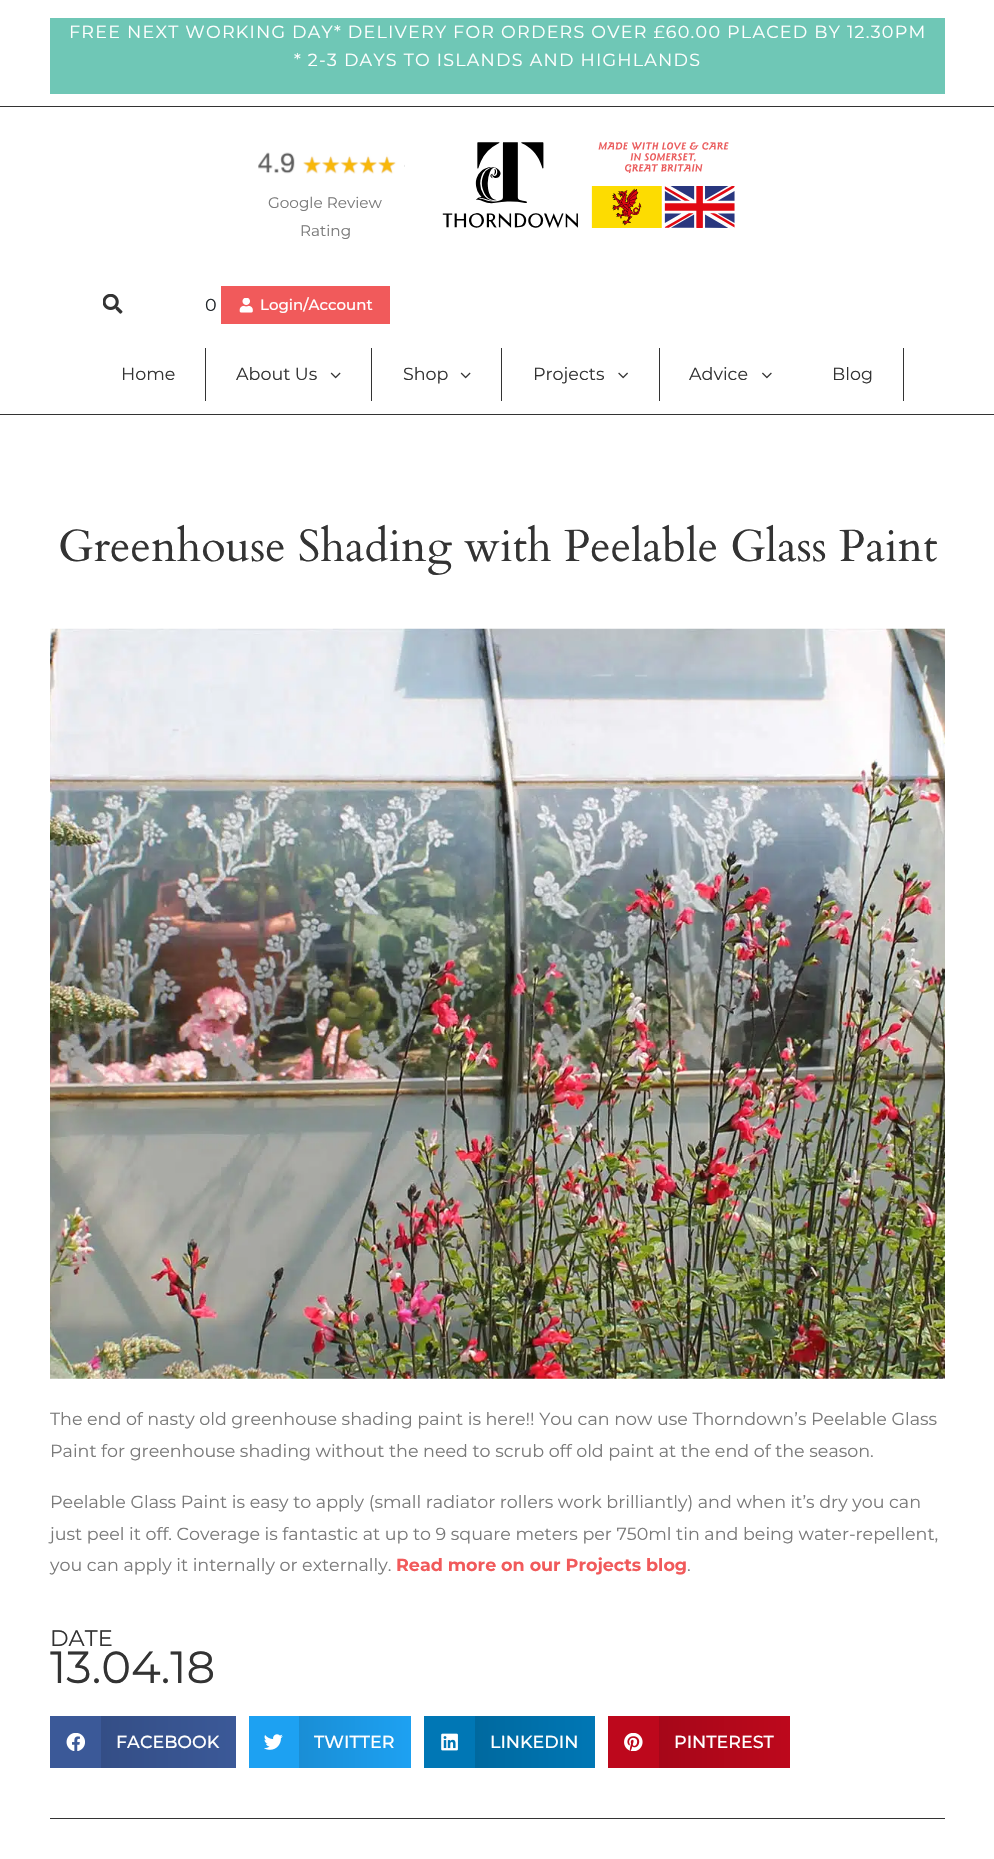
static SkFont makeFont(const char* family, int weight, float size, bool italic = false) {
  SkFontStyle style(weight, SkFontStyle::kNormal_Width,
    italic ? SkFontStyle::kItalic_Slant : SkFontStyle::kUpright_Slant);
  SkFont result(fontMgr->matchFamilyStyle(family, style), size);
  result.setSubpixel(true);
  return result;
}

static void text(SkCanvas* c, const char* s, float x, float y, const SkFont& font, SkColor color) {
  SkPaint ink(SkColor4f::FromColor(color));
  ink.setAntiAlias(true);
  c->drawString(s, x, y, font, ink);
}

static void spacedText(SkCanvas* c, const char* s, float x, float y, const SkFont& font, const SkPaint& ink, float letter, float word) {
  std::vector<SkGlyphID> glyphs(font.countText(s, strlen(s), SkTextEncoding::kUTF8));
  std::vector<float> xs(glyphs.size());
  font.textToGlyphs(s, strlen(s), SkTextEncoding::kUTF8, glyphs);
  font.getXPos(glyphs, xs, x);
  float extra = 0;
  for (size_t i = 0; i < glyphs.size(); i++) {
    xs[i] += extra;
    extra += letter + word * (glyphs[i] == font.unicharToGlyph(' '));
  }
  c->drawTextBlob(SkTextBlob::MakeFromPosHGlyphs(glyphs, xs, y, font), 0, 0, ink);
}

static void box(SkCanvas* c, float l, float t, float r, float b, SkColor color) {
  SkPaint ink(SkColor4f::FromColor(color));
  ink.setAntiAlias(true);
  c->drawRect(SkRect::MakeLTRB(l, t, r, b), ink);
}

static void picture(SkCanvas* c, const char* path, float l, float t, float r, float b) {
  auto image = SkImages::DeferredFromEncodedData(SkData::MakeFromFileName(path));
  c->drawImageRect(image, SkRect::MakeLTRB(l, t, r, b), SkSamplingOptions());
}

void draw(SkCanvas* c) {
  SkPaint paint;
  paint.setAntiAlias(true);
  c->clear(0xffffffff);
  box(c, 0, 106, 994, 107, 0xff333333);
  box(c, 50, 18, 945, 94, 0xff6fc7b6);
  SkFont face1 = makeFont("Montserrat", 400, 17.5f);
  paint.setColor(0xffffffff);
  spacedText(c, "FREE NEXT WORKING DAY* DELIVERY FOR ORDERS OVER £60.00 PLACED BY 12.30PM", 69, 38, face1, paint, 1.25f, 0);
  spacedText(c, "* 2-3 DAYS TO ISLANDS AND HIGHLANDS", 294, 66, face1, paint, 1.25f, 0);
  picture(c, "img_01.png", 258, 152, 405, 174);
  SkFont face2 = makeFont("Montserrat", 400, 15.25f);
  text(c, "Google Review", 268, 208, face2, 0xff7a7a7a);
  text(c, "Rating", 300, 236, face2, 0xff7a7a7a);
  picture(c, "img_02.png", 442, 142, 735, 228);
  picture(c, "img_03.png", 103, 294, 123, 314);
  text(c, "0", 205, 311, face1, 0xff212529);
  box(c, 221, 286, 390, 324, 0xfff15a5b);
  picture(c, "img_04.png", 239, 298, 253, 313);
  SkFont face3 = makeFont("Montserrat", 500, 15);
  text(c, "Login/Account", 260, 310, face3, 0xffffffff);
  box(c, 0, 414, 994, 415, 0xff333333);
  box(c, 205, 348, 206, 401, 0xff333333);
  text(c, "Home", 121, 380, face1, 0xff333333);
  box(c, 371, 348, 372, 401, 0xff333333);
  text(c, "About Us", 236, 380, face1, 0xff333333);
  picture(c, "img_05.png", 330, 372, 341, 379);
  box(c, 501, 348, 502, 401, 0xff333333);
  text(c, "Shop", 403, 380, face1, 0xff333333);
  picture(c, "img_05.png", 460, 372, 471, 379);
  box(c, 659, 348, 660, 401, 0xff333333);
  text(c, "Projects", 533, 380, face1, 0xff333333);
  picture(c, "img_06.png", 618, 372, 628, 379);
  text(c, "Advice", 689, 380, face1, 0xff333333);
  picture(c, "img_07.png", 762, 372, 772, 379);
  box(c, 903, 348, 904, 401, 0xff333333);
  text(c, "Blog", 832, 380, face1, 0xff333333);
  SkFont face4 = makeFont("Cardo", 400, 45);
  text(c, "Greenhouse Shading with Peelable Glass Paint", 58, 561, face4, 0xff333333);
  picture(c, "img_08.png", 50, 628, 945, 1379);
  text(c, "The end of nasty old greenhouse shading paint is here!! You can now use Thorndown’s Peelable Glass", 50, 1425, face1, 0xff7a7a7a);
  text(c, "Paint for greenhouse shading without the need to scrub off old paint at the end of the season.", 50, 1457, face1, 0xff7a7a7a);
  text(c, "Peelable Glass Paint is easy to apply (small radiator rollers work brilliantly) and when it’s dry you can", 50, 1508, face1, 0xff7a7a7a);
  text(c, "just peel it off. Coverage is fantastic at up to 9 square meters per 750ml tin and being water-repellent,", 50, 1540, face1, 0xff7a7a7a);
  text(c, "you can apply it internally or externally.", 50, 1571, face1, 0xff7a7a7a);
  SkFont face5 = makeFont("Montserrat", 700, 17.5f);
  text(c, "Read more on our Projects blog", 396, 1571, face5, 0xfff15a5b);
  text(c, ".", 687, 1571, face1, 0xff7a7a7a);
  SkFont face6 = makeFont("Montserrat", 400, 22.5f);
  text(c, "DATE", 50, 1646, face6, 0xff333333);
  SkFont face7 = makeFont("Montserrat", 400, 45);
  text(c, "13.04.18", 50, 1683, face7, 0xff333333);
  box(c, 50, 1716, 101, 1768, 0xff3b5998);
  picture(c, "img_09.png", 66, 1733, 85, 1751);
  {
    const SkColor colors[] = {0xff344e86, 0xff3b5998};
    const float stops[] = {0, 1};
    const SkPoint ends[] = {{101, 1742}, {236, 1742}};
    paint.setShader(SkGradientShader::MakeLinear(ends, colors, stops, 2, SkTileMode::kClamp));
    paint.setAlpha(255);
  }
  c->drawRect(SkRect::MakeLTRB(101, 1716, 236, 1768), paint);
  SkFont face8 = makeFont("Montserrat", 500, 17.5f);
  text(c, "FACEBOOK", 116, 1748, face8, 0xffffffff);
  box(c, 249, 1716, 299, 1768, 0xff1da1f2);
  picture(c, "img_10.png", 264, 1734, 283, 1750);
  {
    const SkColor colors[] = {0xff1a8ed5, 0xff1da1f2};
    const float stops[] = {0, 1};
    const SkPoint ends[] = {{299, 1742}, {411, 1742}};
    paint.setShader(SkGradientShader::MakeLinear(ends, colors, stops, 2, SkTileMode::kClamp));
    paint.setAlpha(255);
  }
  c->drawRect(SkRect::MakeLTRB(299, 1716, 411, 1768), paint);
  text(c, "TWITTER", 314, 1748, face8, 0xffffffff);
  box(c, 424, 1716, 475, 1768, 0xff0077b5);
  picture(c, "img_11.png", 441, 1733, 458, 1751);
  {
    const SkColor colors[] = {0xff00699f, 0xff0077b5};
    const float stops[] = {0, 1};
    const SkPoint ends[] = {{475, 1742}, {595, 1742}};
    paint.setShader(SkGradientShader::MakeLinear(ends, colors, stops, 2, SkTileMode::kClamp));
    paint.setAlpha(255);
  }
  c->drawRect(SkRect::MakeLTRB(475, 1716, 595, 1768), paint);
  text(c, "LINKEDIN", 490, 1748, face8, 0xffffffff);
  box(c, 608, 1716, 659, 1768, 0xffbd081c);
  picture(c, "img_12.png", 624, 1733, 643, 1751);
  {
    const SkColor colors[] = {0xffa60719, 0xffbd081c};
    const float stops[] = {0, 1};
    const SkPoint ends[] = {{659, 1742}, {790, 1742}};
    paint.setShader(SkGradientShader::MakeLinear(ends, colors, stops, 2, SkTileMode::kClamp));
    paint.setAlpha(255);
  }
  c->drawRect(SkRect::MakeLTRB(659, 1716, 790, 1768), paint);
  text(c, "PINTEREST", 674, 1748, face8, 0xffffffff);
  box(c, 50, 1818, 945, 1819, 0xff333333);
}
